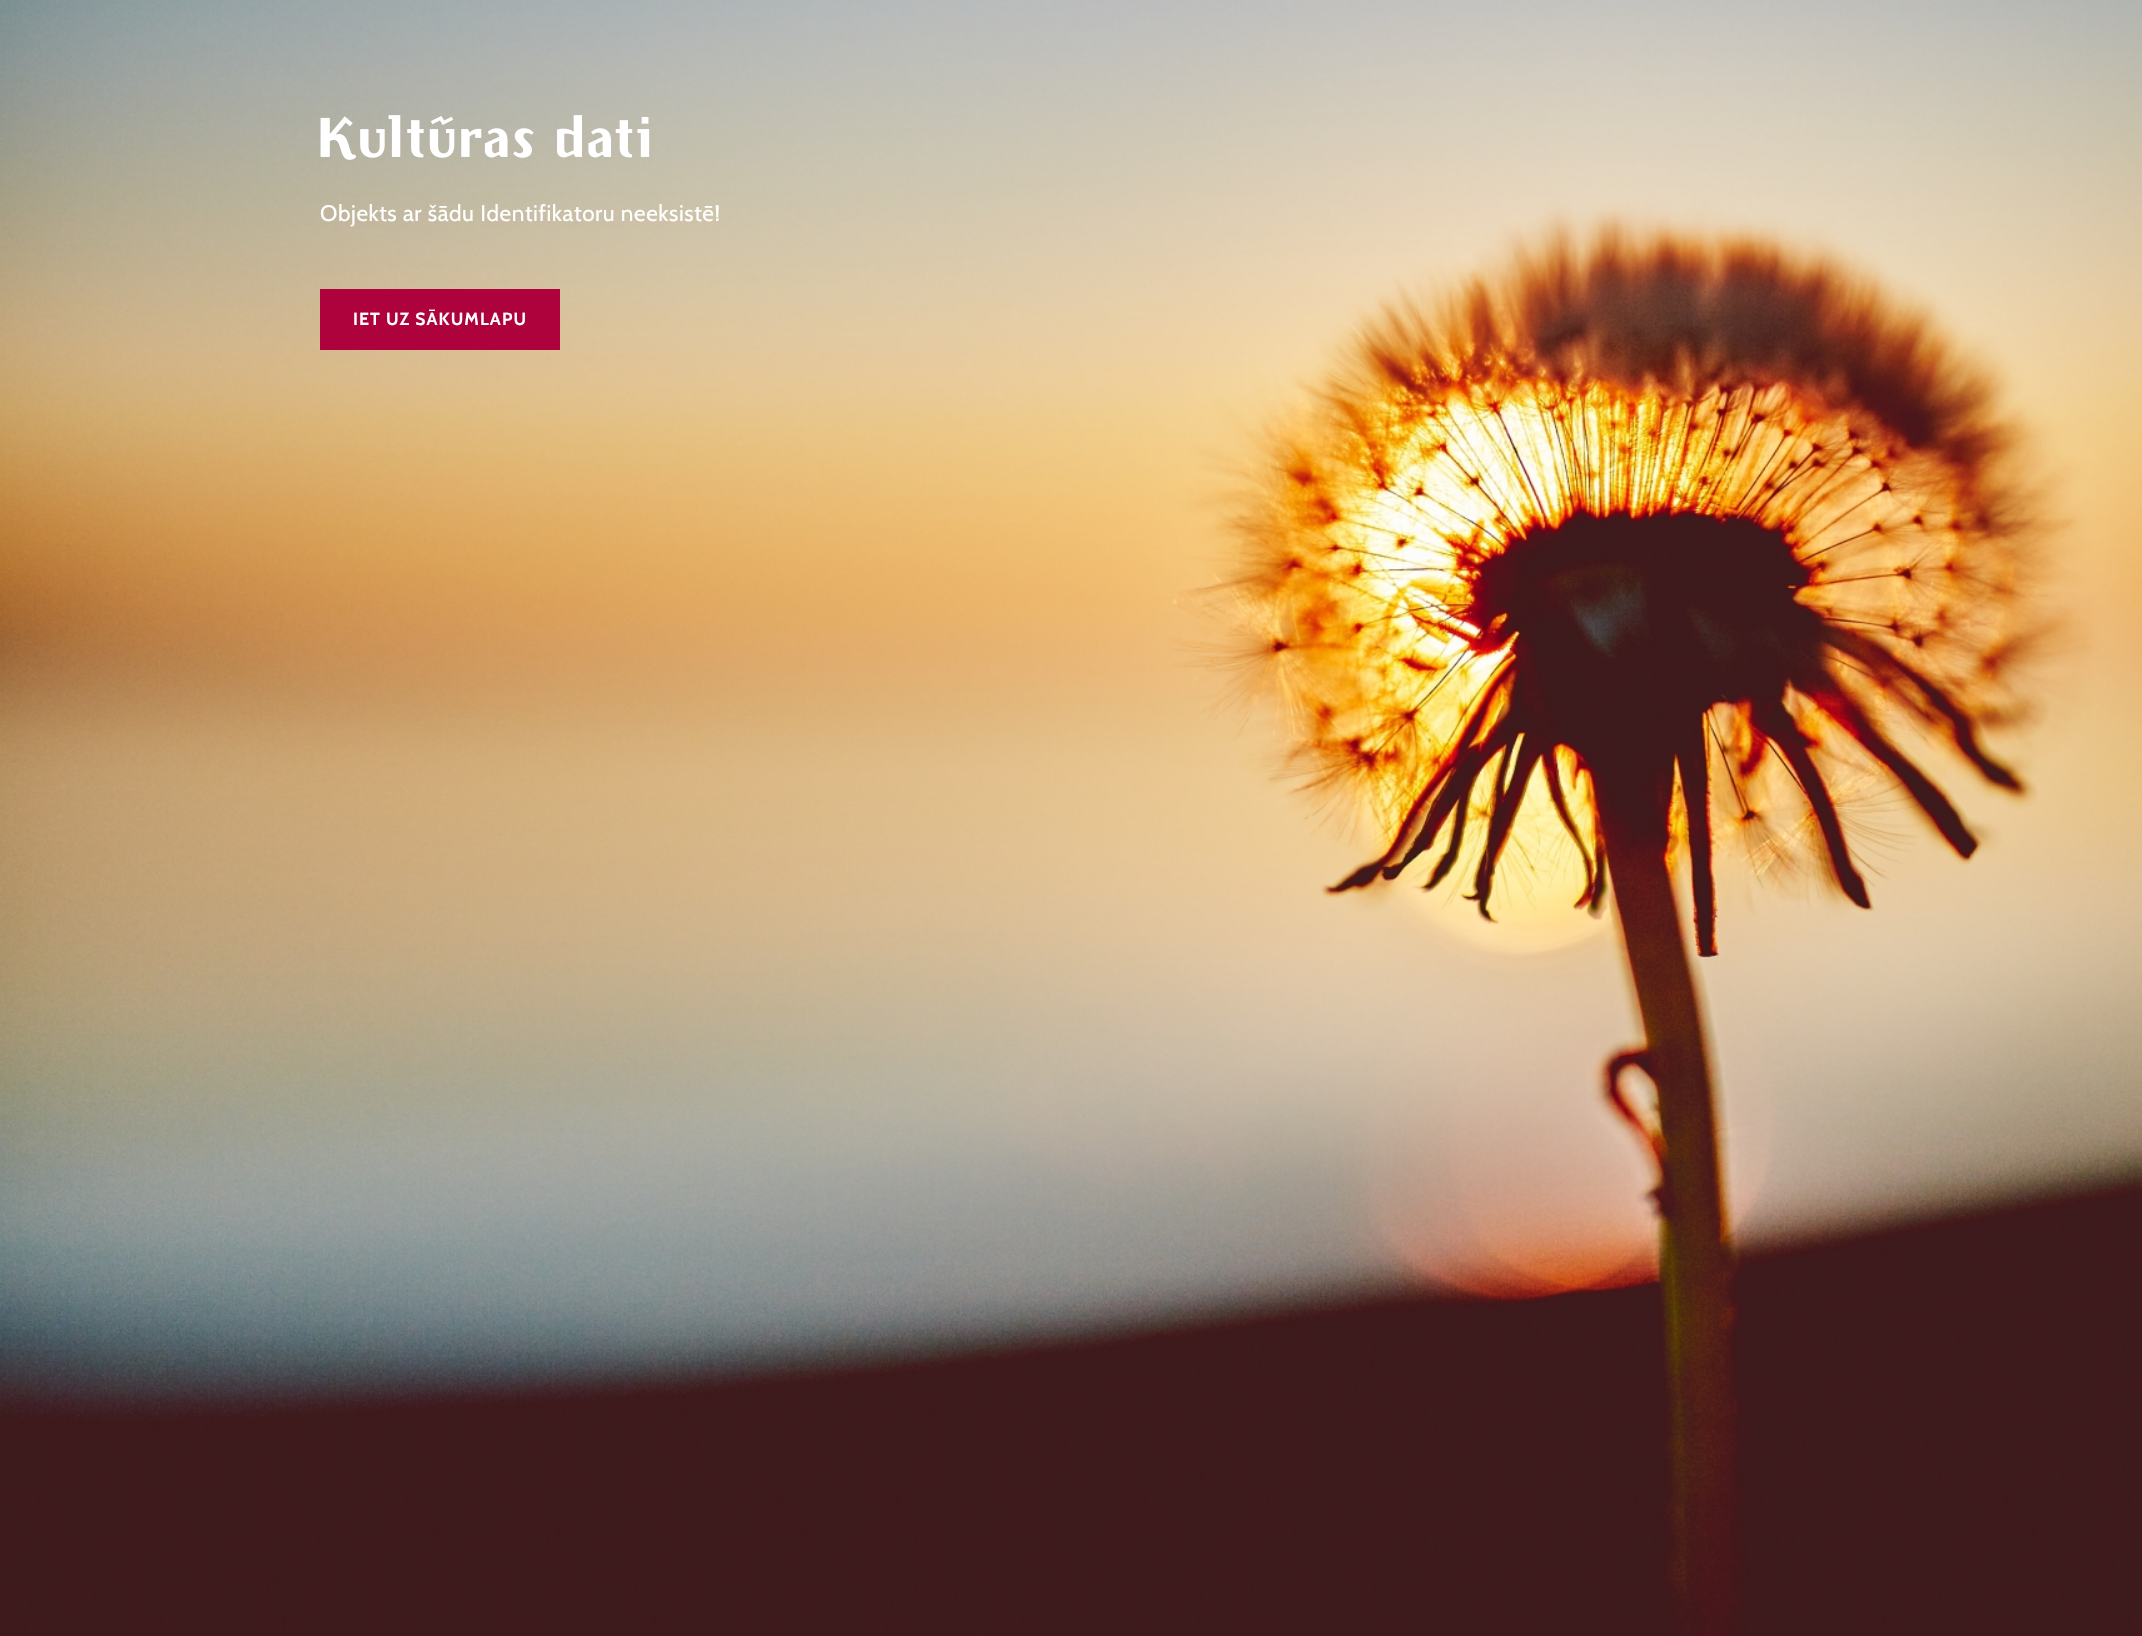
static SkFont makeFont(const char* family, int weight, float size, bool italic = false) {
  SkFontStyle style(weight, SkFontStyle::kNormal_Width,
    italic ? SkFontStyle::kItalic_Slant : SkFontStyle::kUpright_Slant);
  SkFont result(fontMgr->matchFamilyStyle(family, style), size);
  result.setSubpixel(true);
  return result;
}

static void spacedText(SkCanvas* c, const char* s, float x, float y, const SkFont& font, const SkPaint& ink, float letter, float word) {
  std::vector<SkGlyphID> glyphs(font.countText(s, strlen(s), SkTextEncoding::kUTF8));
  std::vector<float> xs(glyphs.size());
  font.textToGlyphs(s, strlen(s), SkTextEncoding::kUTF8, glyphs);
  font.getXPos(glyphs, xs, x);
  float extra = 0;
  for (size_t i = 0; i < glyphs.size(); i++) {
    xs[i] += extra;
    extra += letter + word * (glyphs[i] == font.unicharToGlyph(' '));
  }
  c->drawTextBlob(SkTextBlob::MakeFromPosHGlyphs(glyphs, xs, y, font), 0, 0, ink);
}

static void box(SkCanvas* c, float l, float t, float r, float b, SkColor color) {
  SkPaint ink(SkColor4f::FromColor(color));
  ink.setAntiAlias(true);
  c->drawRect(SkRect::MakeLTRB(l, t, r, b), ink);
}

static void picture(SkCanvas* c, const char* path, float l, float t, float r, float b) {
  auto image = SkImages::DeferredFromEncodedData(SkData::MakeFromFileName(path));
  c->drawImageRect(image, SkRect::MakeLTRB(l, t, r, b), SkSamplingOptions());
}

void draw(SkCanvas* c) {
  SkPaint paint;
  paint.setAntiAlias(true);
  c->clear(0xffffffff);
  picture(c, "img_01.png", 0, 0, 2142, 1636);
  picture(c, "img_02.png", 320, 115, 650, 160);
  SkFont face1 = makeFont("Cabin", 400, 22.5f);
  paint.setColor(0xffffffff);
  spacedText(c, "Objekts ar šādu Identifikatoru neeksistē!", 320, 221, face1, paint, 0.6f, 0);
  box(c, 320, 289, 560, 350, 0xffae023d);
  SkFont face2 = makeFont("Cabin", 700, 17.5f);
  spacedText(c, "IET UZ SĀKUMLAPU", 353, 325, face2, paint, 1.1f, 0);
}
